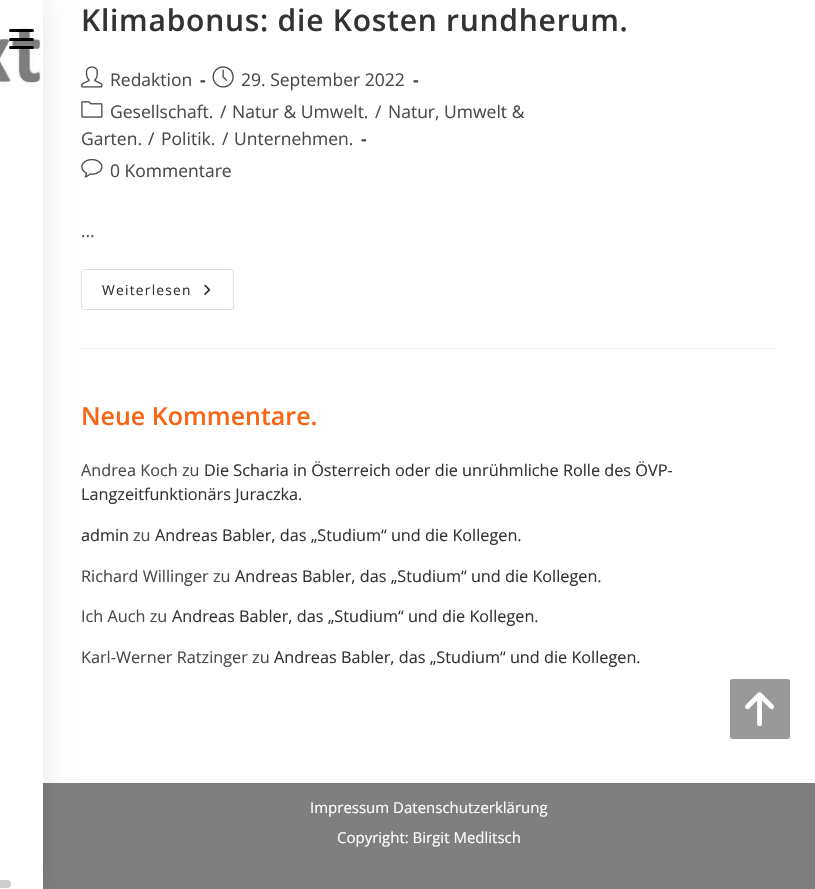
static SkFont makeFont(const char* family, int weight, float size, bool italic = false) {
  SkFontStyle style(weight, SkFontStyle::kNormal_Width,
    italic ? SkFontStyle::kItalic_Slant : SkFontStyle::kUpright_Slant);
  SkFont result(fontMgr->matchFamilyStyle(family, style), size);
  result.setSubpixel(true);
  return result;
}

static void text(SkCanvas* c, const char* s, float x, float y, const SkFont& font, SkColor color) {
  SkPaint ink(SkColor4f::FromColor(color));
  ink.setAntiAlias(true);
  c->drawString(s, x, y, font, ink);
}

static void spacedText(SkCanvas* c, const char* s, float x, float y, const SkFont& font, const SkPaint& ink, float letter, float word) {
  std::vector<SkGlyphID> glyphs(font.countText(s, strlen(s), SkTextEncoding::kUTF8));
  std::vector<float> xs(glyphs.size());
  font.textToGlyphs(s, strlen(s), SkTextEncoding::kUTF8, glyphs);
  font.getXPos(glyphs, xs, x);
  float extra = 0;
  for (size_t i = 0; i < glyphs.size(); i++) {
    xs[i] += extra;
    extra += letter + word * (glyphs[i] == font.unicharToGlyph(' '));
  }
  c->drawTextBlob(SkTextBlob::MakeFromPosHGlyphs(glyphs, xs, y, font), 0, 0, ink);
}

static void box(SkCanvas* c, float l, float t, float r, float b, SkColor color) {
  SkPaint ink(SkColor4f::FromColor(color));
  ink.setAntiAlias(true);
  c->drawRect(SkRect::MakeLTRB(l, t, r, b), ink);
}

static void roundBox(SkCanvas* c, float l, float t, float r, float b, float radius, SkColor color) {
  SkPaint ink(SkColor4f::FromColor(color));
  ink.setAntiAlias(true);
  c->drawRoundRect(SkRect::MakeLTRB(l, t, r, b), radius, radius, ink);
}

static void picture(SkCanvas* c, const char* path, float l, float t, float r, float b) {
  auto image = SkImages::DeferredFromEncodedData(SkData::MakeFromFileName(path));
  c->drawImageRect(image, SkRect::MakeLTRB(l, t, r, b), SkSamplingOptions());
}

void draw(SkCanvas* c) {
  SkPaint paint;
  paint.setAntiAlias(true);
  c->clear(0xffffffff);
  box(c, 81, 348, 776, 349, 0xfff1f1f1);
  picture(c, "img_02.png", 81, 66, 103, 88);
  picture(c, "img_04.png", 81, 101, 103, 118);
  picture(c, "img_05.png", 81, 158, 103, 178);
  paint.setStyle(SkPaint::kStroke_Style);
  paint.setStrokeWidth(1);
  paint.setColor(0xffdddddd);
  c->drawRoundRect(SkRect::MakeLTRB(81.5f, 269.5f, 233.5f, 309.5f), 2, 2, paint);
  box(c, 43, 783, 815, 889, 0xff7f7f7f);
  paint.setStyle(SkPaint::kFill_Style);
  paint.setColor(0x1a000000);
  paint.setMaskFilter(SkMaskFilter::MakeBlur(kNormal_SkBlurStyle, 12.5f));
  c->drawRect(SkRect::MakeLTRB(-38, 0, 43, 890), paint);
  paint.setMaskFilter(nullptr);
  box(c, 0, 0, 43, 889, 0xffffffff);
  picture(c, "img_01.png", 0, 28, 41, 85);
  roundBox(c, 9, 38, 34, 41, 1.5f, 0xff000000);
  roundBox(c, 9, 29, 34, 32, 1.5f, 0xff000000);
  roundBox(c, 9, 46, 34, 49, 1.5f, 0xff000000);
  roundBox(c, -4, 880, 11, 888, 4, 0xffcccccc);
  SkFont face1 = makeFont("Open Sans", 600, 30);
  paint.setColor(0xff333333);
  spacedText(c, "Klimabonus: die Kosten rundherum.", 81, 31, face1, paint, 0.75f, 0);
  SkFont face2 = makeFont("Open Sans", 400, 17.5f);
  text(c, "Redaktion", 110, 86, face2, 0xff4a4a4a);
  SkFont face3 = makeFont("Open Sans", 700, 17.5f);
  text(c, "-", 200, 86, face3, 0xff4a4a4a);
  picture(c, "img_03.png", 212, 66, 234, 88);
  text(c, "29. September 2022", 241, 86, face2, 0xff4a4a4a);
  text(c, "-", 413, 86, face3, 0xff4a4a4a);
  text(c, "Gesellschaft.", 110, 118, face2, 0xff4a4a4a);
  text(c, "/", 220, 118, face2, 0xff4a4a4a);
  text(c, "Natur & Umwelt.", 232, 118, face2, 0xff4a4a4a);
  text(c, "/", 375, 118, face2, 0xff4a4a4a);
  text(c, "Natur, Umwelt &", 388, 118, face2, 0xff4a4a4a);
  text(c, "Garten.", 81, 145, face2, 0xff4a4a4a);
  text(c, "/", 148, 145, face2, 0xff4a4a4a);
  text(c, "Politik.", 161, 145, face2, 0xff4a4a4a);
  text(c, "/", 222, 145, face2, 0xff4a4a4a);
  text(c, "Unternehmen.", 234, 145, face2, 0xff4a4a4a);
  text(c, "-", 361, 145, face3, 0xff4a4a4a);
  text(c, "0 Kommentare", 110, 177, face2, 0xff4a4a4a);
  text(c, "…", 81, 237, face2, 0xff4a4a4a);
  SkFont face4 = makeFont("Open Sans", 400, 13.75f);
  spacedText(c, "Weiterlesen", 102, 295, face4, paint, 1.25f, 0);
  picture(c, "img_06.png", 204, 284, 211, 295);
  SkFont face5 = makeFont("Open Sans", 600, 25);
  text(c, "Neue Kommentare.", 81, 425, face5, 0xfff96513);
  SkFont face6 = makeFont("Open Sans", 400, 16.25f);
  text(c, "Andrea Koch zu", 81, 476, face6, 0xff4a4a4a);
  text(c, "Die Scharia in Österreich oder die unrühmliche Rolle des ÖVP-", 204, 476, face6, 0xff333333);
  text(c, "Langzeitfunktionärs Juraczka.", 81, 500, face6, 0xff333333);
  text(c, "admin", 81, 541, face6, 0xff333333);
  text(c, "zu", 133, 541, face6, 0xff4a4a4a);
  text(c, "Andreas Babler, das „Studium“ und die Kollegen.", 155, 541, face6, 0xff333333);
  text(c, "Richard Willinger zu", 81, 582, face6, 0xff4a4a4a);
  text(c, "Andreas Babler, das „Studium“ und die Kollegen.", 235, 582, face6, 0xff333333);
  text(c, "Ich Auch zu", 81, 622, face6, 0xff4a4a4a);
  text(c, "Andreas Babler, das „Studium“ und die Kollegen.", 172, 622, face6, 0xff333333);
  text(c, "Karl-Werner Ratzinger zu", 81, 663, face6, 0xff4a4a4a);
  text(c, "Andreas Babler, das „Studium“ und die Kollegen.", 274, 663, face6, 0xff333333);
  SkFont face7 = makeFont("Open Sans", 400, 15);
  text(c, "Impressum Datenschutzerklärung", 310, 813, face7, 0xffffffff);
  text(c, "Copyright: Birgit Medlitsch", 337, 843, face7, 0xffffffff);
  roundBox(c, 730, 679, 790, 739, 2.5f, 0xff999999);
  picture(c, "img_07.png", 745, 692, 774, 727);
}
